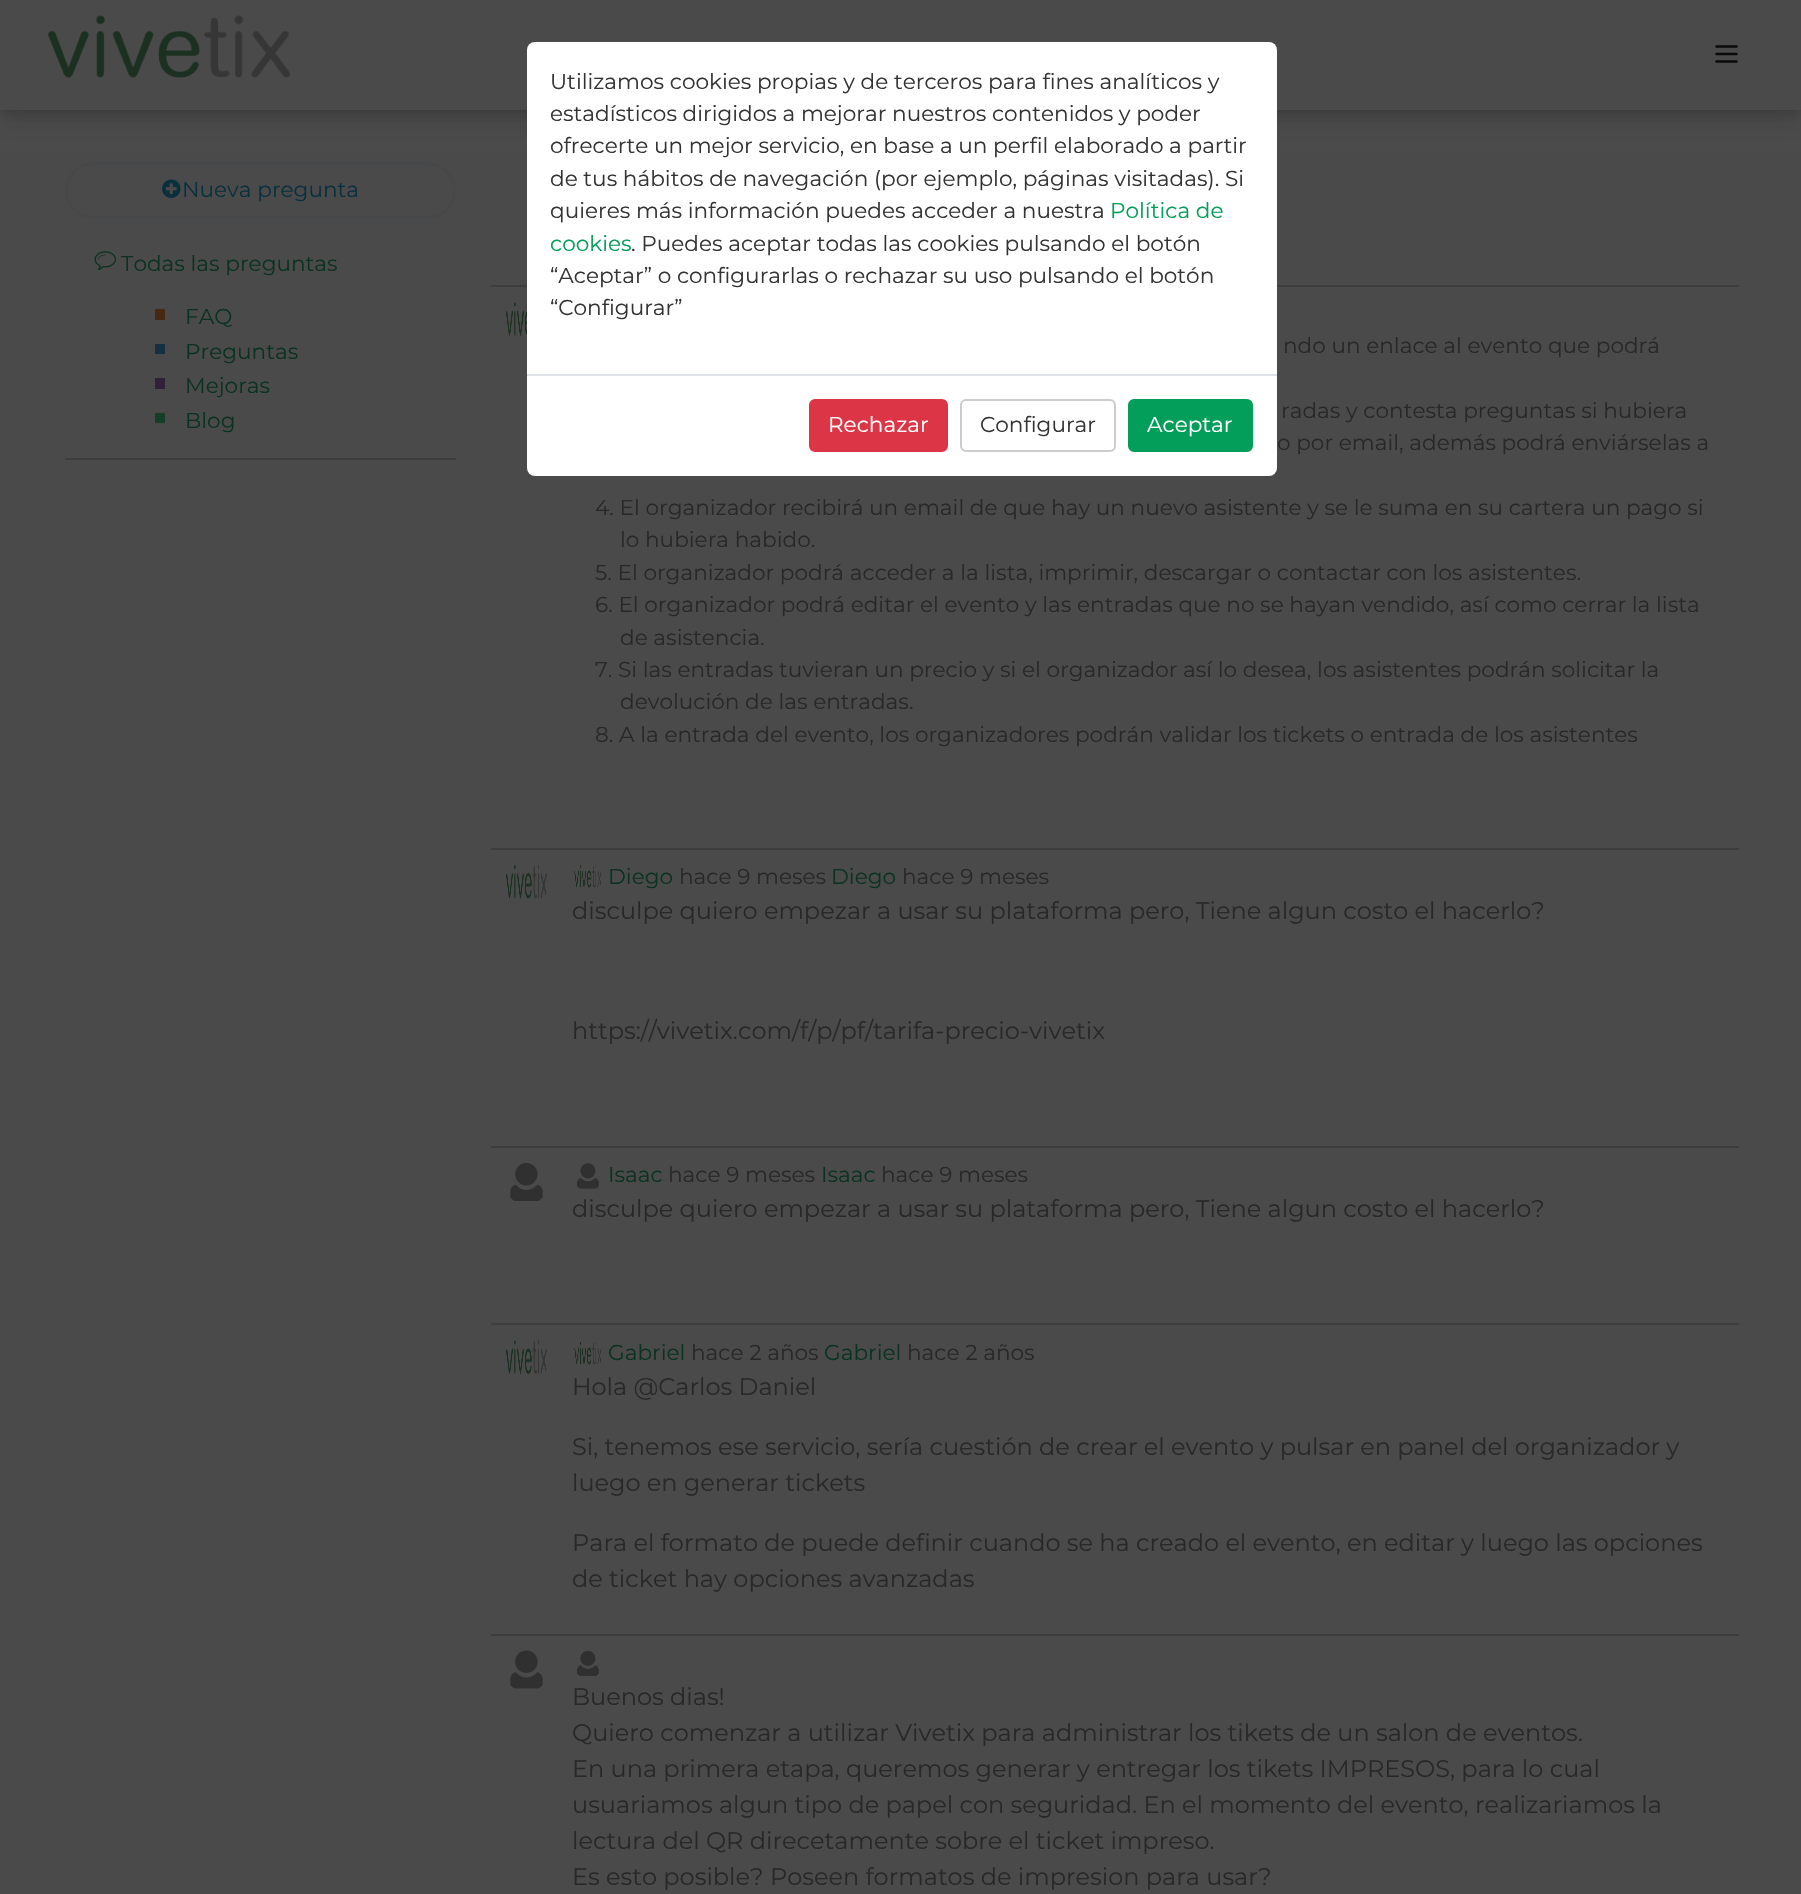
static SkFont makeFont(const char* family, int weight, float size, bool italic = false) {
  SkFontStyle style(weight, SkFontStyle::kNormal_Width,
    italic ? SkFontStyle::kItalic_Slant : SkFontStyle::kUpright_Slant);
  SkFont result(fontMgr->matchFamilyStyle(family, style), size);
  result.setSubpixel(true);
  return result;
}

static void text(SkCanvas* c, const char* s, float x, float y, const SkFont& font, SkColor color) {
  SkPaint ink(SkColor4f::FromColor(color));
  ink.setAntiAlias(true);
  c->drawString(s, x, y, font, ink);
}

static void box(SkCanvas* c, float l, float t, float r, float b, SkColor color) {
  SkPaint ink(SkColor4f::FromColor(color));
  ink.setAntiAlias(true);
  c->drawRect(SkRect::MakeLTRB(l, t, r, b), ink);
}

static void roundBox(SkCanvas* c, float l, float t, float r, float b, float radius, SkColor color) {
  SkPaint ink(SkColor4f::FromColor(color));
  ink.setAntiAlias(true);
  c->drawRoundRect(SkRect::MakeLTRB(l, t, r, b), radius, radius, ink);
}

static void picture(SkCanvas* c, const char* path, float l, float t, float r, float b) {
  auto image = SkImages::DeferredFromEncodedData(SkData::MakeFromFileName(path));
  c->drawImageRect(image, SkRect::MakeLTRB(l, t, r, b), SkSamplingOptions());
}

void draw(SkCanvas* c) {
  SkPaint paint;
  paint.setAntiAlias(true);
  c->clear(0xff4a4a4a);
  paint.setColor(0x380a0a0a);
  paint.setMaskFilter(SkMaskFilter::MakeBlur(kNormal_SkBlurStyle, 6));
  c->drawRect(SkRect::MakeLTRB(-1, -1, 1800, 108), paint);
  paint.setMaskFilter(nullptr);
  paint.setMaskFilter(SkMaskFilter::MakeBlur(kNormal_SkBlurStyle, 12));
  c->drawRect(SkRect::MakeLTRB(0, 6, 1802, 116), paint);
  paint.setMaskFilter(nullptr);
  box(c, 0, 0, 1801, 110, 0xff4a4a4a);
  picture(c, "img_01.png", 48, 15, 291, 78);
  paint.setStyle(SkPaint::kStroke_Style);
  paint.setStrokeWidth(2.5f);
  paint.setStrokeCap(SkPaint::kRound_Cap);
  paint.setStrokeJoin(SkPaint::kRound_Join);
  paint.setColor(0xff0a0a0a);
  c->drawPath(SkPathBuilder().moveTo(1716.5f, 46.5f).lineTo(1736.5f, 46.5f).moveTo(1716.5f, 54).lineTo(1736.5f, 54).moveTo(1716.5f, 61.5f).lineTo(1736.5f, 61.5f).detach(), paint);
  box(c, 491, 285, 1739, 287, 0xff3d3d3d);
  roundBox(c, 527, 42, 1277, 476, 8, 0xffffffff);
  SkFont face1 = makeFont("Montserrat", 400, 21.6f);
  text(c, "Utilizamos cookies propias y de terceros para fines analíticos y", 550, 89, face1, 0xff333333);
  text(c, "estadísticos dirigidos a mejorar nuestros contenidos y poder", 550, 121, face1, 0xff333333);
  text(c, "ofrecerte un mejor servicio, en base a un perfil elaborado a partir", 550, 153, face1, 0xff333333);
  text(c, "de tus hábitos de navegación (por ejemplo, páginas visitadas). Si", 550, 186, face1, 0xff333333);
  text(c, "quieres más información puedes acceder a nuestra", 550, 218, face1, 0xff333333);
  text(c, "Política de", 1110, 218, face1, 0xff039e59);
  text(c, "cookies", 550, 251, face1, 0xff039e59);
  text(c, ". Puedes aceptar todas las cookies pulsando el botón", 631, 251, face1, 0xff333333);
  text(c, "“Aceptar” o configurarlas o rechazar su uso pulsando el botón", 550, 283, face1, 0xff333333);
  text(c, "“Configurar”", 550, 315, face1, 0xff333333);
  box(c, 527, 374, 1277, 376, 0xffdee2e6);
  paint.setStyle(SkPaint::kFill_Style);
  paint.setColor(0xffdc3545);
  c->drawRoundRect(SkRect::MakeLTRB(810, 400, 947, 451), 5, 5, paint);
  paint.setStyle(SkPaint::kStroke_Style);
  paint.setStrokeWidth(2);
  paint.setStrokeCap(SkPaint::kButt_Cap);
  paint.setStrokeJoin(SkPaint::kMiter_Join);
  c->drawRoundRect(SkRect::MakeLTRB(810, 400, 947, 451), 5, 5, paint);
  text(c, "Rechazar", 828, 432, face1, 0xffffffff);
  paint.setColor(0xffcccccc);
  c->drawRoundRect(SkRect::MakeLTRB(961, 400, 1115, 451), 5, 5, paint);
  text(c, "Configurar", 980, 432, face1, 0xff333333);
  paint.setStyle(SkPaint::kFill_Style);
  paint.setColor(0xff039e59);
  c->drawRoundRect(SkRect::MakeLTRB(1129, 400, 1252, 451), 5, 5, paint);
  paint.setStyle(SkPaint::kStroke_Style);
  c->drawRoundRect(SkRect::MakeLTRB(1129, 400, 1252, 451), 5, 5, paint);
  text(c, "Aceptar", 1147, 432, face1, 0xffffffff);
  paint.setStrokeWidth(3);
  paint.setColor(0xff47484a);
  c->drawRoundRect(SkRect::MakeLTRB(66.5f, 163.5f, 454.5f, 217.5f), 27, 27, paint);
  picture(c, "img_02.png", 162, 179, 181, 198);
  text(c, "Nueva pregunta", 182, 197, face1, 0xff0a303d);
  picture(c, "img_03.png", 94, 251, 117, 271);
  text(c, "Todas las preguntas", 121, 271, face1, 0xff0b3221);
  box(c, 155, 309, 165, 320, 0xff442a13);
  text(c, "FAQ", 185, 324, face1, 0xff0b3221);
  box(c, 155, 344, 165, 354, 0xff173041);
  text(c, "Preguntas", 185, 359, face1, 0xff0b3221);
  box(c, 155, 378, 165, 389, 0xff312138);
  text(c, "Mejoras", 185, 393, face1, 0xff0b3221);
  box(c, 155, 413, 165, 423, 0xff163d27);
  text(c, "Blog", 185, 428, face1, 0xff0b3221);
  box(c, 65, 458, 456, 460, 0xff3d3d3e);
  box(c, 491, 848, 1739, 850, 0xff3d3d3d);
  picture(c, "img_04.png", 506, 302, 527, 336);
  text(c, "ndo un enlace al evento que podrá", 1283, 353, face1, 0xff282828);
  text(c, "radas y contesta preguntas si hubiera", 1281, 418, face1, 0xff282828);
  text(c, "o por email, además podrá enviárselas a", 1277, 450, face1, 0xff282828);
  text(c, "4. El organizador recibirá un email de que hay un nuevo asistente y se le suma en su cartera un pago si", 595, 515, face1, 0xff282828);
  text(c, "lo hubiera habido.", 620, 547, face1, 0xff282828);
  text(c, "5. El organizador podrá acceder a la lista, imprimir, descargar o contactar con los asistentes.", 595, 580, face1, 0xff282828);
  text(c, "6. El organizador podrá editar el evento y las entradas que no se hayan vendido, así como cerrar la lista", 595, 612, face1, 0xff282828);
  text(c, "de asistencia.", 620, 645, face1, 0xff282828);
  text(c, "7. Si las entradas tuvieran un precio y si el organizador así lo desea, los asistentes podrán solicitar la", 595, 677, face1, 0xff282828);
  text(c, "devolución de las entradas.", 620, 709, face1, 0xff282828);
  text(c, "8. A la entrada del evento, los organizadores podrán validar los tickets o entrada de los asistentes", 595, 742, face1, 0xff282828);
  box(c, 491, 1146, 1739, 1148, 0xff3d3d3d);
  picture(c, "img_05.png", 506, 864, 547, 899);
  picture(c, "img_06.png", 574, 865, 602, 888);
  text(c, "Diego", 608, 884, face1, 0xff0b3221);
  text(c, "hace 9 meses", 679, 884, face1, 0xff282828);
  text(c, "Diego", 831, 884, face1, 0xff0b3221);
  text(c, "hace 9 meses", 902, 884, face1, 0xff282828);
  SkFont face2 = makeFont("Montserrat", 400, 24);
  text(c, "disculpe quiero empezar a usar su plataforma pero, Tiene algun costo el hacerlo?", 572, 919, face2, 0xff282828);
  text(c, "https://vivetix.com/f/p/pf/tarifa-precio-vivetix", 572, 1039, face2, 0xff282828);
  box(c, 491, 1323, 1739, 1325, 0xff3d3d3d);
  picture(c, "img_07.png", 510, 1162, 543, 1201);
  picture(c, "img_08.png", 577, 1163, 599, 1189);
  text(c, "Isaac", 608, 1182, face1, 0xff0b3221);
  text(c, "hace 9 meses", 668, 1182, face1, 0xff282828);
  text(c, "Isaac", 821, 1182, face1, 0xff0b3221);
  text(c, "hace 9 meses", 881, 1182, face1, 0xff282828);
  text(c, "disculpe quiero empezar a usar su plataforma pero, Tiene algun costo el hacerlo?", 572, 1217, face2, 0xff282828);
  box(c, 491, 1634, 1739, 1636, 0xff3d3d3d);
  picture(c, "img_09.png", 506, 1340, 547, 1374);
  picture(c, "img_06.png", 574, 1342, 602, 1365);
  text(c, "Gabriel", 608, 1360, face1, 0xff0b3221);
  text(c, "hace 2 años", 691, 1360, face1, 0xff282828);
  text(c, "Gabriel", 824, 1360, face1, 0xff0b3221);
  text(c, "hace 2 años", 907, 1360, face1, 0xff282828);
  text(c, "Hola @Carlos Daniel", 572, 1395, face2, 0xff282828);
  text(c, "Si, tenemos ese servicio, sería cuestión de crear el evento y pulsar en panel del organizador y", 572, 1455, face2, 0xff282828);
  text(c, "luego en generar tickets", 572, 1491, face2, 0xff282828);
  text(c, "Para el formato de puede definir cuando se ha creado el evento, en editar y luego las opciones", 572, 1551, face2, 0xff282828);
  text(c, "de ticket hay opciones avanzadas", 572, 1587, face2, 0xff282828);
  picture(c, "img_10.png", 510, 1650, 543, 1689);
  picture(c, "img_11.png", 577, 1650, 599, 1676);
  text(c, "Buenos dias!", 572, 1705, face2, 0xff282828);
  text(c, "Quiero comenzar a utilizar Vivetix para administrar los tikets de un salon de eventos.", 572, 1741, face2, 0xff282828);
  text(c, "En una primera etapa, queremos generar y entregar los tikets IMPRESOS, para lo cual", 572, 1777, face2, 0xff282828);
  text(c, "usuariamos algun tipo de papel con seguridad. En el momento del evento, realizariamos la", 572, 1813, face2, 0xff282828);
  text(c, "lectura del QR direcetamente sobre el ticket impreso.", 572, 1849, face2, 0xff282828);
  text(c, "Es esto posible? Poseen formatos de impresion para usar?", 572, 1885, face2, 0xff282828);
}
